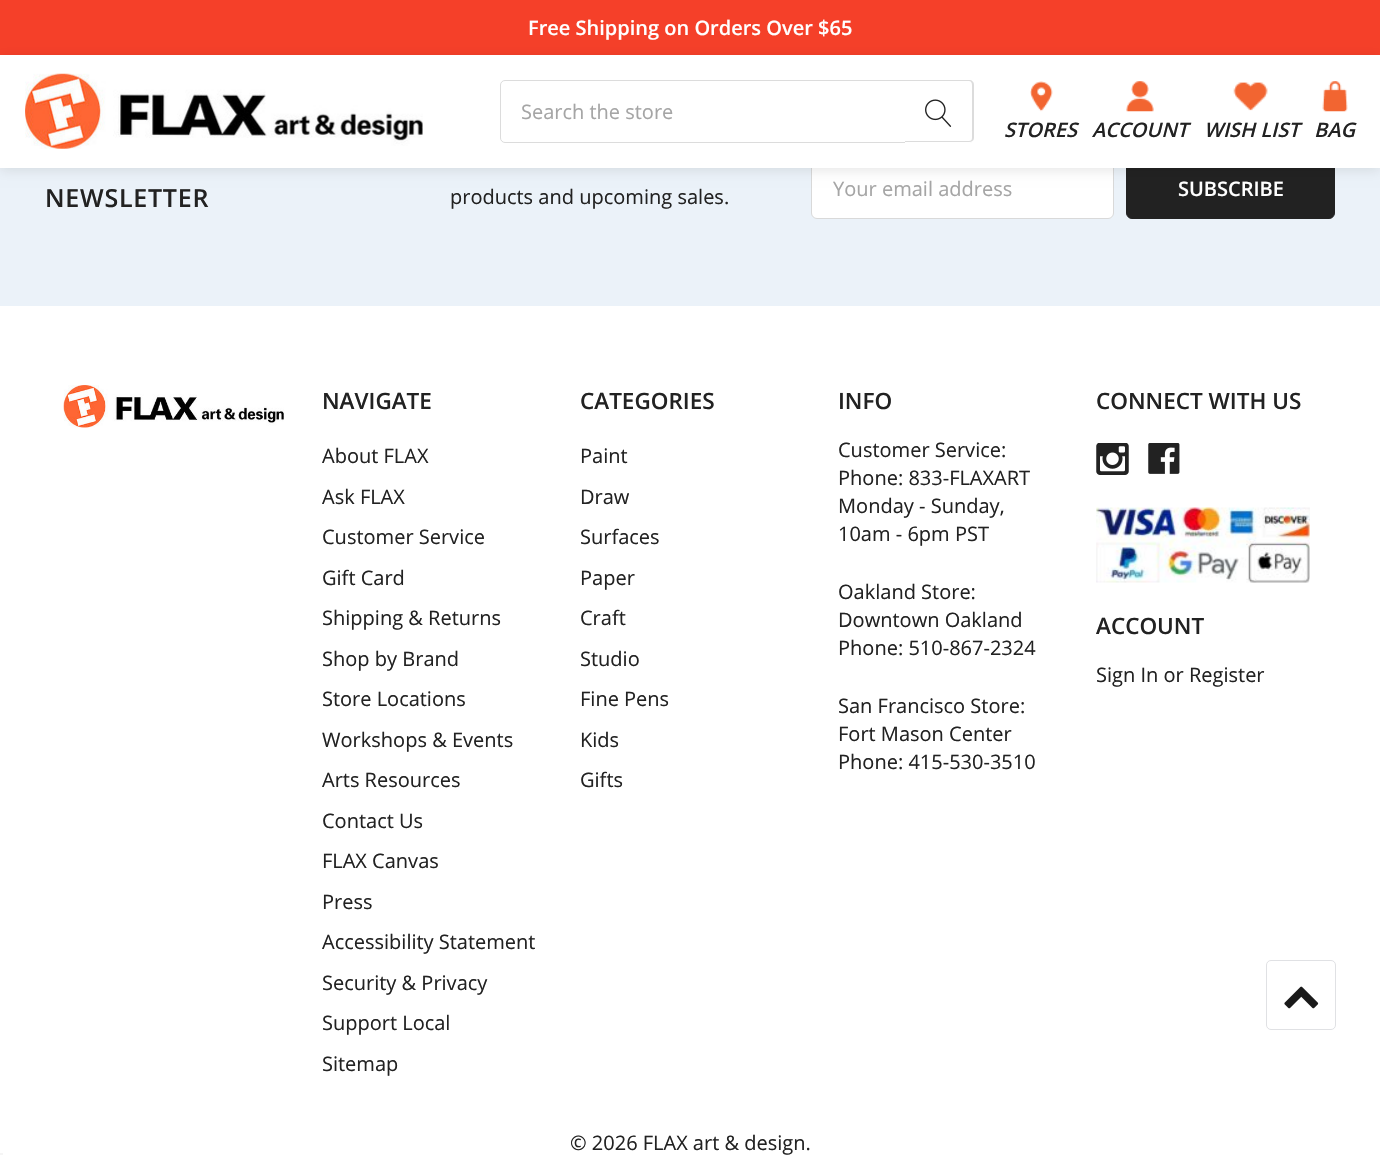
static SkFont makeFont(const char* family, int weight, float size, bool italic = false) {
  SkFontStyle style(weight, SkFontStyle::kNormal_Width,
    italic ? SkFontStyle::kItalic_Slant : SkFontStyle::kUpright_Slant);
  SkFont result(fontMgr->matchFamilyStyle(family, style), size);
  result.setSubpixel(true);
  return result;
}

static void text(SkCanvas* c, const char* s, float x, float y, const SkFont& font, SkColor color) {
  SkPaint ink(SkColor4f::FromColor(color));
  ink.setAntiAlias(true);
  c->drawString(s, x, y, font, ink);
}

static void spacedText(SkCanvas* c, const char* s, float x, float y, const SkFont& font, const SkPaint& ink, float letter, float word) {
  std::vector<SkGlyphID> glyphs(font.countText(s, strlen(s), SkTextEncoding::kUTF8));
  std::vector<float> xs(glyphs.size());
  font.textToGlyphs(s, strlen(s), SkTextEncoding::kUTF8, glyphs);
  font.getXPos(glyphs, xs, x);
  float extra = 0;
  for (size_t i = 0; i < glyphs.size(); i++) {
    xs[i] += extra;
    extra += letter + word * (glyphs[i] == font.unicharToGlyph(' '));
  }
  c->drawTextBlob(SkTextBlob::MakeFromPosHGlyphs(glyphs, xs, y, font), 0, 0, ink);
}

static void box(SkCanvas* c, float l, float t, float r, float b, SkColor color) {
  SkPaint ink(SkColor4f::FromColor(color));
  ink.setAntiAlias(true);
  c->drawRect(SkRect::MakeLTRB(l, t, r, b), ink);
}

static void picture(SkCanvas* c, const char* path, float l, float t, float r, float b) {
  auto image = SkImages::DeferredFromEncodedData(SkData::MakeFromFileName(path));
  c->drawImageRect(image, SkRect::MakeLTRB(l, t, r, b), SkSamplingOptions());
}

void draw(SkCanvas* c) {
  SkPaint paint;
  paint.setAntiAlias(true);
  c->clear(0xffffffff);
  box(c, 0, 0, 1380, 55, 0xfff54029);
  SkFont face1 = makeFont("Open Sans", 600, 20);
  text(c, "Free Shipping on Orders Over $65", 528, 35, face1, 0xffffffff);
  box(c, 0, 168, 1380, 306, 0xffebf2f9);
  paint.setColor(0xffffffff);
  c->drawRoundRect(SkRect::MakeLTRB(811.5f, 156.5f, 1113.5f, 218.5f), 5.5f, 5.5f, paint);
  paint.setStyle(SkPaint::kStroke_Style);
  paint.setStrokeWidth(1);
  paint.setColor(0xffd9d9d9);
  c->drawRoundRect(SkRect::MakeLTRB(811.5f, 156.5f, 1113.5f, 218.5f), 5.5f, 5.5f, paint);
  paint.setStyle(SkPaint::kFill_Style);
  paint.setColor(0xff222222);
  c->drawRoundRect(SkRect::MakeLTRB(1126.5f, 156.5f, 1334.5f, 218.5f), 5.5f, 5.5f, paint);
  paint.setStyle(SkPaint::kStroke_Style);
  c->drawRoundRect(SkRect::MakeLTRB(1126.5f, 156.5f, 1334.5f, 218.5f), 5.5f, 5.5f, paint);
  paint.setStyle(SkPaint::kFill_Style);
  paint.setColor(0x1a000000);
  paint.setMaskFilter(SkMaskFilter::MakeBlur(kNormal_SkBlurStyle, 6));
  c->drawRect(SkRect::MakeLTRB(0, 58, 1380, 170), paint);
  paint.setMaskFilter(nullptr);
  box(c, 0, 55, 1380, 168, 0xffffffff);
  picture(c, "img_01.png", 25, 73, 423, 149);
  paint.setStyle(SkPaint::kStroke_Style);
  paint.setColor(0xffdcdcdc);
  c->drawRoundRect(SkRect::MakeLTRB(500.5f, 80.5f, 973.5f, 142.5f), 4.5f, 4.5f, paint);
  SkFont face2 = makeFont("Open Sans", 400, 20);
  text(c, "Search the store", 521, 119, face2, 0xffa5a5a5);
  paint.setStyle(SkPaint::kFill_Style);
  paint.setColor(0xffffffff);
  c->drawPath(SkPathBuilder().moveTo(905, 80).lineTo(969, 80).cubicTo(972, 80, 974, 82, 974, 85).lineTo(974, 138).cubicTo(974, 141, 972, 143, 969, 143).lineTo(905, 143).close().detach(), paint);
  paint.setColor(0xffdcdcdc);
  c->drawPath(SkPathBuilder(SkPathFillType::kEvenOdd).moveTo(905, 80).lineTo(969, 80).cubicTo(972, 80, 974, 82, 974, 85).lineTo(974, 138).cubicTo(974, 140, 972, 142, 969, 142).lineTo(905, 142).close().moveTo(905, 81).lineTo(969, 81).cubicTo(971, 81, 972, 83, 972, 85).lineTo(972, 138).cubicTo(972, 140, 971, 141, 969, 141).lineTo(905, 141).close().detach(), paint);
  picture(c, "img_02.png", 925, 99, 952, 127);
  picture(c, "img_03.png", 1030, 81, 1053, 112);
  SkFont face3 = makeFont("Open Sans", 600, 20, true);
  text(c, "STORES", 1004, 137, face3, 0xff222222);
  picture(c, "img_04.png", 1126, 81, 1154, 112);
  text(c, "ACCOUNT", 1092, 137, face3, 0xff222222);
  picture(c, "img_05.png", 1233, 82, 1268, 111);
  text(c, "WISH LIST", 1204, 137, face3, 0xff222222);
  picture(c, "img_06.png", 1322, 81, 1348, 112);
  text(c, "BAG", 1314, 137, face3, 0xff222222);
  SkFont face4 = makeFont("Open Sans", 600, 25);
  paint.setColor(0xff222222);
  spacedText(c, "NEWSLETTER", 45, 207, face4, paint, 0.75f, 0);
  text(c, "products and upcoming sales.", 450, 204, face2, 0xff222222);
  text(c, "Your email address", 833, 196, face2, 0xffa5a5a5);
  text(c, "SUBSCRIBE", 1178, 196, face1, 0xffffffff);
  picture(c, "img_07.png", 63, 385, 284, 428);
  SkFont face5 = makeFont("Open Sans", 600, 22.5f);
  text(c, "NAVIGATE", 322, 409, face5, 0xff222222);
  text(c, "About FLAX", 322, 463, face2, 0xff222222);
  text(c, "Ask FLAX", 322, 504, face2, 0xff222222);
  text(c, "Customer Service", 322, 544, face2, 0xff222222);
  text(c, "Gift Card", 322, 585, face2, 0xff222222);
  text(c, "Shipping & Returns", 322, 625, face2, 0xff222222);
  text(c, "Shop by Brand", 322, 666, face2, 0xff222222);
  text(c, "Store Locations", 322, 706, face2, 0xff222222);
  text(c, "Workshops & Events", 322, 747, face2, 0xff222222);
  text(c, "Arts Resources", 322, 787, face2, 0xff222222);
  text(c, "Contact Us", 322, 828, face2, 0xff222222);
  text(c, "FLAX Canvas", 322, 868, face2, 0xff222222);
  text(c, "Press", 322, 909, face2, 0xff222222);
  text(c, "Accessibility Statement", 322, 949, face2, 0xff222222);
  text(c, "Security & Privacy", 322, 990, face2, 0xff222222);
  text(c, "Support Local", 322, 1030, face2, 0xff222222);
  text(c, "Sitemap", 322, 1071, face2, 0xff222222);
  text(c, "CATEGORIES", 580, 409, face5, 0xff222222);
  text(c, "Paint", 580, 463, face2, 0xff222222);
  text(c, "Draw", 580, 504, face2, 0xff222222);
  text(c, "Surfaces", 580, 544, face2, 0xff222222);
  text(c, "Paper", 580, 585, face2, 0xff222222);
  text(c, "Craft", 580, 625, face2, 0xff222222);
  text(c, "Studio", 580, 666, face2, 0xff222222);
  text(c, "Fine Pens", 580, 706, face2, 0xff222222);
  text(c, "Kids", 580, 747, face2, 0xff222222);
  text(c, "Gifts", 580, 787, face2, 0xff222222);
  text(c, "INFO", 838, 409, face5, 0xff222222);
  text(c, "Customer Service:", 838, 457, face2, 0xff222222);
  text(c, "Phone: 833-FLAXART", 838, 485, face2, 0xff222222);
  text(c, "Monday - Sunday,", 838, 513, face2, 0xff222222);
  text(c, "10am - 6pm PST", 838, 541, face2, 0xff222222);
  text(c, "Oakland Store:", 838, 599, face2, 0xff222222);
  text(c, "Downtown Oakland", 838, 627, face2, 0xff222222);
  text(c, "Phone: 510-867-2324", 838, 655, face2, 0xff222222);
  text(c, "San Francisco Store:", 838, 713, face2, 0xff222222);
  text(c, "Fort Mason Center", 838, 741, face2, 0xff222222);
  text(c, "Phone: 415-530-3510", 838, 769, face2, 0xff222222);
  text(c, "CONNECT WITH US", 1096, 409, face5, 0xff222222);
  picture(c, "img_08.png", 1096, 443, 1129, 475);
  picture(c, "img_09.png", 1148, 443, 1180, 474);
  picture(c, "img_10.png", 1096, 507, 1310, 583);
  text(c, "ACCOUNT", 1096, 634, face5, 0xff222222);
  text(c, "Sign In or Register", 1096, 682, face2, 0xff222222);
  text(c, "© 2026 FLAX art & design.", 570, 1150, face2, 0xff222222);
  paint.setStyle(SkPaint::kStroke_Style);
  paint.setColor(0xffe0e1e4);
  c->drawRoundRect(SkRect::MakeLTRB(1266.5f, 960.5f, 1335.5f, 1029.5f), 4.5f, 4.5f, paint);
  picture(c, "img_11.png", 1284, 986, 1319, 1009);
  box(c, 0, 1153, 3, 1155, 0xfff5f5f5);
}
